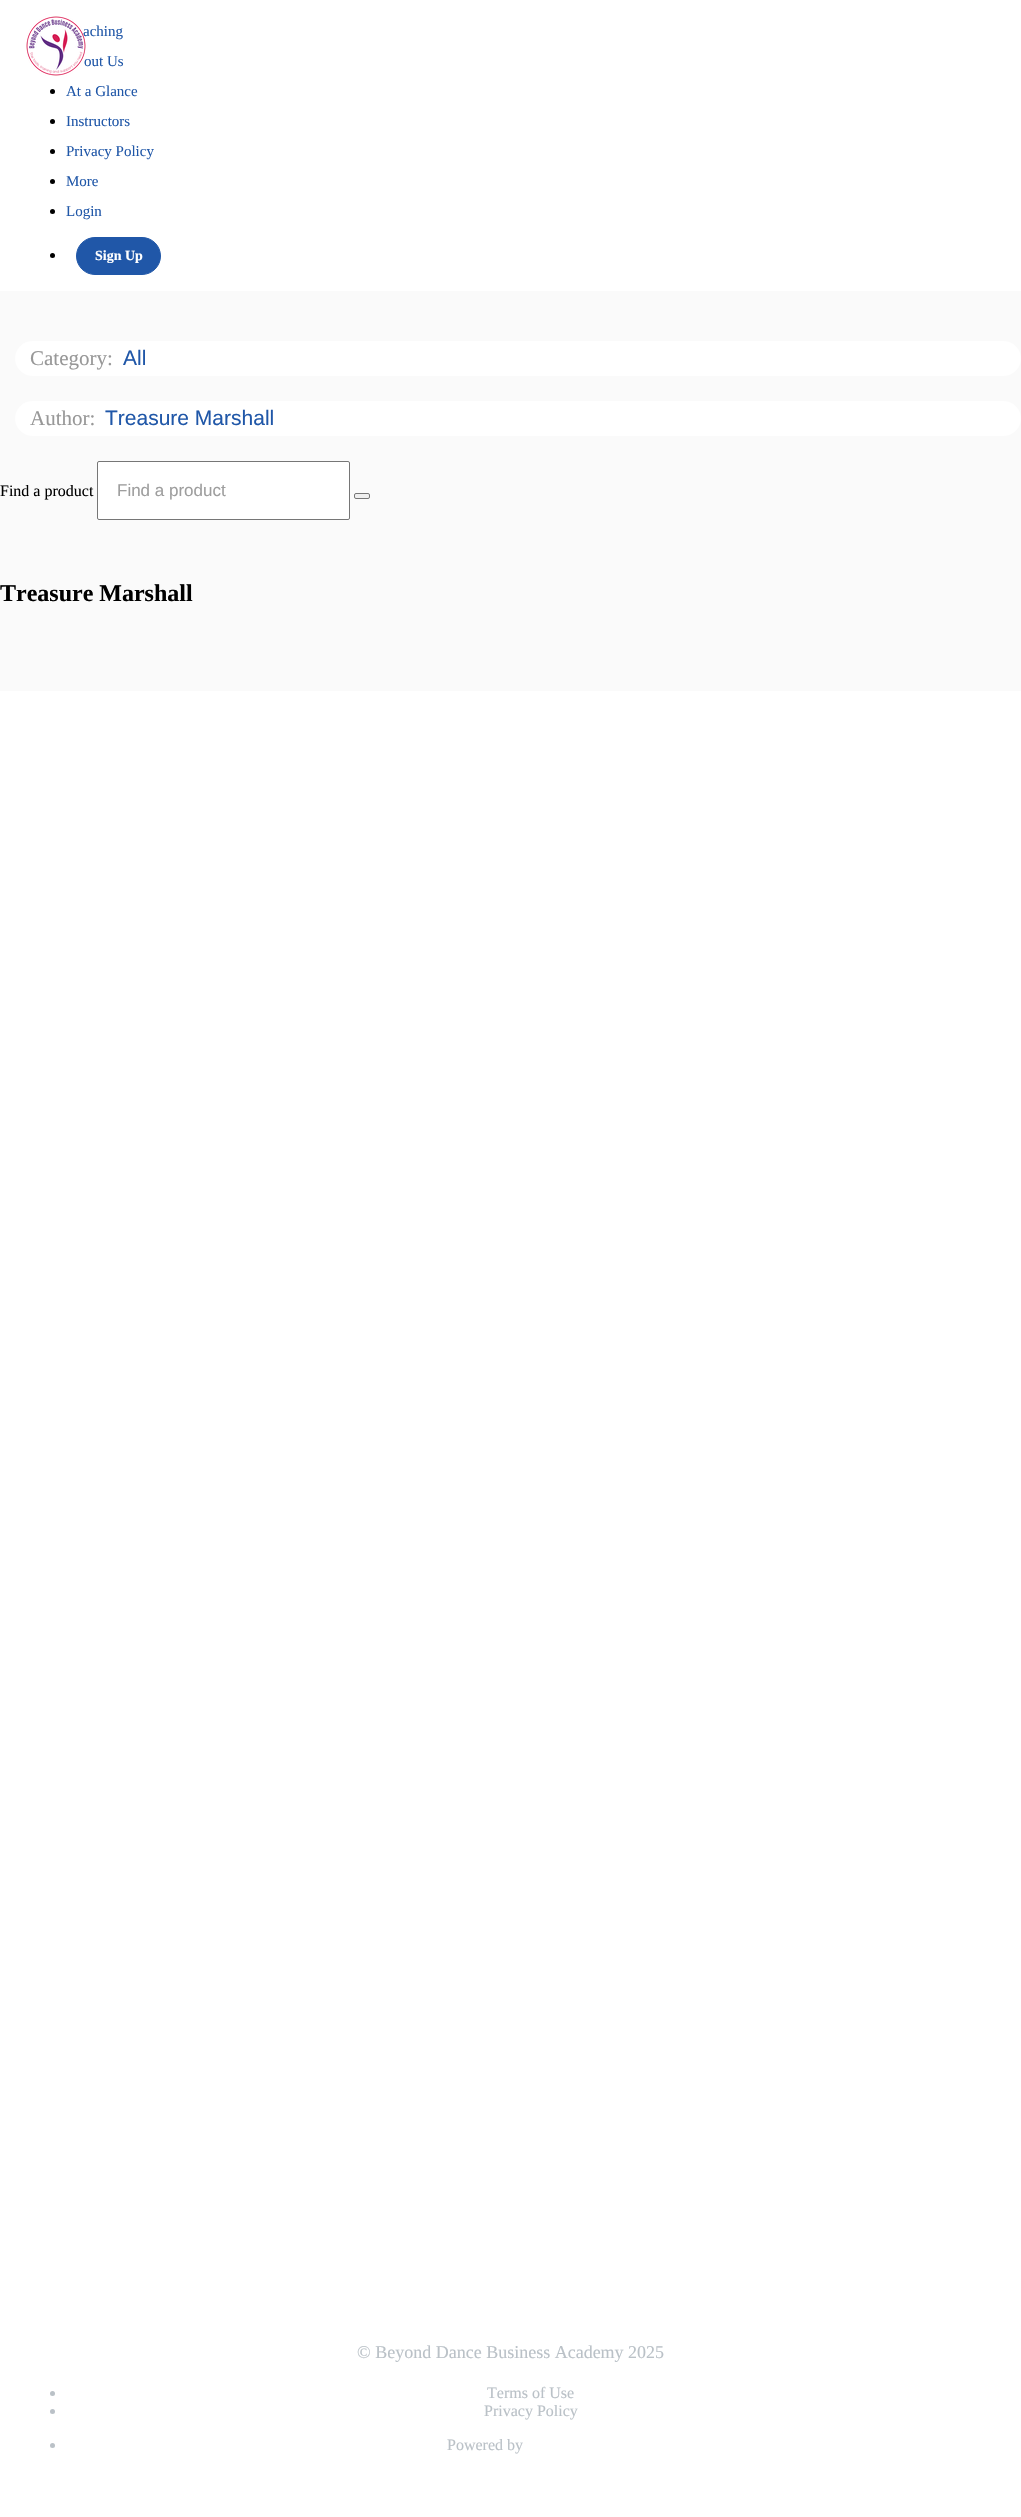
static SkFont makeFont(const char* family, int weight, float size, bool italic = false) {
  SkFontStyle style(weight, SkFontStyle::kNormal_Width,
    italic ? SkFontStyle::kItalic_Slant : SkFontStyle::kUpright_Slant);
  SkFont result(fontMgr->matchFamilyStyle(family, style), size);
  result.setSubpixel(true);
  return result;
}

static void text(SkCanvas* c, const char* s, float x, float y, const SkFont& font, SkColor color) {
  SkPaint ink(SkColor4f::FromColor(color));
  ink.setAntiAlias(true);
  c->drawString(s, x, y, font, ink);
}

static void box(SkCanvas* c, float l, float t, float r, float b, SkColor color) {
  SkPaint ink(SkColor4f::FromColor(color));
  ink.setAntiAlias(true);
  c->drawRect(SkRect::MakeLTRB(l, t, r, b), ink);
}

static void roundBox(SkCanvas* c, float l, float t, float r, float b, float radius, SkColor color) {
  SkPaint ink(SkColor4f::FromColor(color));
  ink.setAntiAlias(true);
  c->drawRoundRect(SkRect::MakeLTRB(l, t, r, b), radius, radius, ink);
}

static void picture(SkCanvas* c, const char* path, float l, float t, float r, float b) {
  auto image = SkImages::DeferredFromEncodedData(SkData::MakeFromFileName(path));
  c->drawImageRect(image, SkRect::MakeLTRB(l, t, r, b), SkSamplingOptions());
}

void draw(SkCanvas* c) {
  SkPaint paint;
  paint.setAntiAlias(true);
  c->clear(0xffffffff);
  SkFont face1 = makeFont("Liberation Serif", 400, 15);
  text(c, "aching", 83, 36, face1, 0xff2057a8);
  text(c, "out Us", 84, 66, face1, 0xff2057a8);
  picture(c, "img_01.png", 26, 16, 86, 76);
  paint.setColor(0xff000000);
  c->drawCircle(52.5f, 91.5f, 2.5f, paint);
  text(c, "At a Glance", 66, 96, face1, 0xff2057a8);
  c->drawCircle(52.5f, 121.5f, 2.5f, paint);
  text(c, "Instructors", 66, 126, face1, 0xff2057a8);
  c->drawCircle(52.5f, 151.5f, 2.5f, paint);
  text(c, "Privacy Policy", 66, 156, face1, 0xff2057a8);
  c->drawCircle(52.5f, 181.5f, 2.5f, paint);
  text(c, "More", 66, 186, face1, 0xff2057a8);
  c->drawCircle(52.5f, 211.5f, 2.5f, paint);
  text(c, "Login", 66, 216, face1, 0xff2057a8);
  c->drawCircle(52.5f, 255.5f, 2.5f, paint);
  paint.setColor(0xff2057a8);
  c->drawRoundRect(SkRect::MakeLTRB(76.5f, 237.5f, 160.5f, 274.5f), 18.5f, 18.5f, paint);
  paint.setStyle(SkPaint::kStroke_Style);
  paint.setStrokeWidth(1);
  c->drawRoundRect(SkRect::MakeLTRB(76.5f, 237.5f, 160.5f, 274.5f), 18.5f, 18.5f, paint);
  SkFont face2 = makeFont("Liberation Serif", 700, 14);
  text(c, "Sign Up", 95, 260, face2, 0xffffffff);
  box(c, 0, 291, 1021, 691, 0xfffafafa);
  roundBox(c, 15, 341, 1021, 376, 17.5f, 0xffffffff);
  SkFont face3 = makeFont("Liberation Serif", 400, 21);
  text(c, "Category:", 30, 365, face3, 0xff989898);
  SkFont face4 = makeFont("Liberation Sans", 400, 21);
  text(c, "All", 123, 365, face4, 0xff2057a8);
  roundBox(c, 15, 401, 1021, 436, 17.5f, 0xffffffff);
  text(c, "Author:", 30, 425, face3, 0xff989898);
  text(c, "Treasure Marshall", 105, 425, face4, 0xff2057a8);
  SkFont face5 = makeFont("Liberation Serif", 400, 16);
  text(c, "Find a product", 0, 496, face5, 0xff000000);
  paint.setStyle(SkPaint::kFill_Style);
  paint.setColor(0xffffffff);
  c->drawRoundRect(SkRect::MakeLTRB(97.5f, 461.5f, 349.5f, 519.5f), 1.5f, 1.5f, paint);
  paint.setStyle(SkPaint::kStroke_Style);
  paint.setColor(0xff767676);
  c->drawRoundRect(SkRect::MakeLTRB(97.5f, 461.5f, 349.5f, 519.5f), 1.5f, 1.5f, paint);
  SkFont face6 = makeFont("Liberation Sans", 400, 17);
  text(c, "Find a product", 117, 496, face6, 0xff9e9e9e);
  paint.setStyle(SkPaint::kFill_Style);
  paint.setColor(0xffefefef);
  c->drawRoundRect(SkRect::MakeLTRB(354.5f, 493.5f, 369.5f, 498.5f), 1.5f, 1.5f, paint);
  paint.setStyle(SkPaint::kStroke_Style);
  paint.setColor(0xff767676);
  c->drawRoundRect(SkRect::MakeLTRB(354.5f, 493.5f, 369.5f, 498.5f), 1.5f, 1.5f, paint);
  SkFont face7 = makeFont("Liberation Serif", 700, 24);
  text(c, "Treasure Marshall", 0, 601, face7, 0xff000000);
  SkFont face8 = makeFont("Liberation Serif", 400, 18);
  text(c, "© Beyond Dance Business Academy 2025", 357, 2358, face8, 0xffbac1c7);
  paint.setStyle(SkPaint::kFill_Style);
  paint.setColor(0xffbac1c7);
  c->drawCircle(52.5f, 2393.5f, 2.5f, paint);
  text(c, "Terms of Use", 487, 2398, face5, 0xffbac1c7);
  c->drawCircle(52.5f, 2411.5f, 2.5f, paint);
  text(c, "Privacy Policy", 484, 2416, face5, 0xffbac1c7);
  c->drawCircle(52.5f, 2445.5f, 2.5f, paint);
  text(c, "Powered by", 447, 2450, face5, 0xffbac1c7);
}
